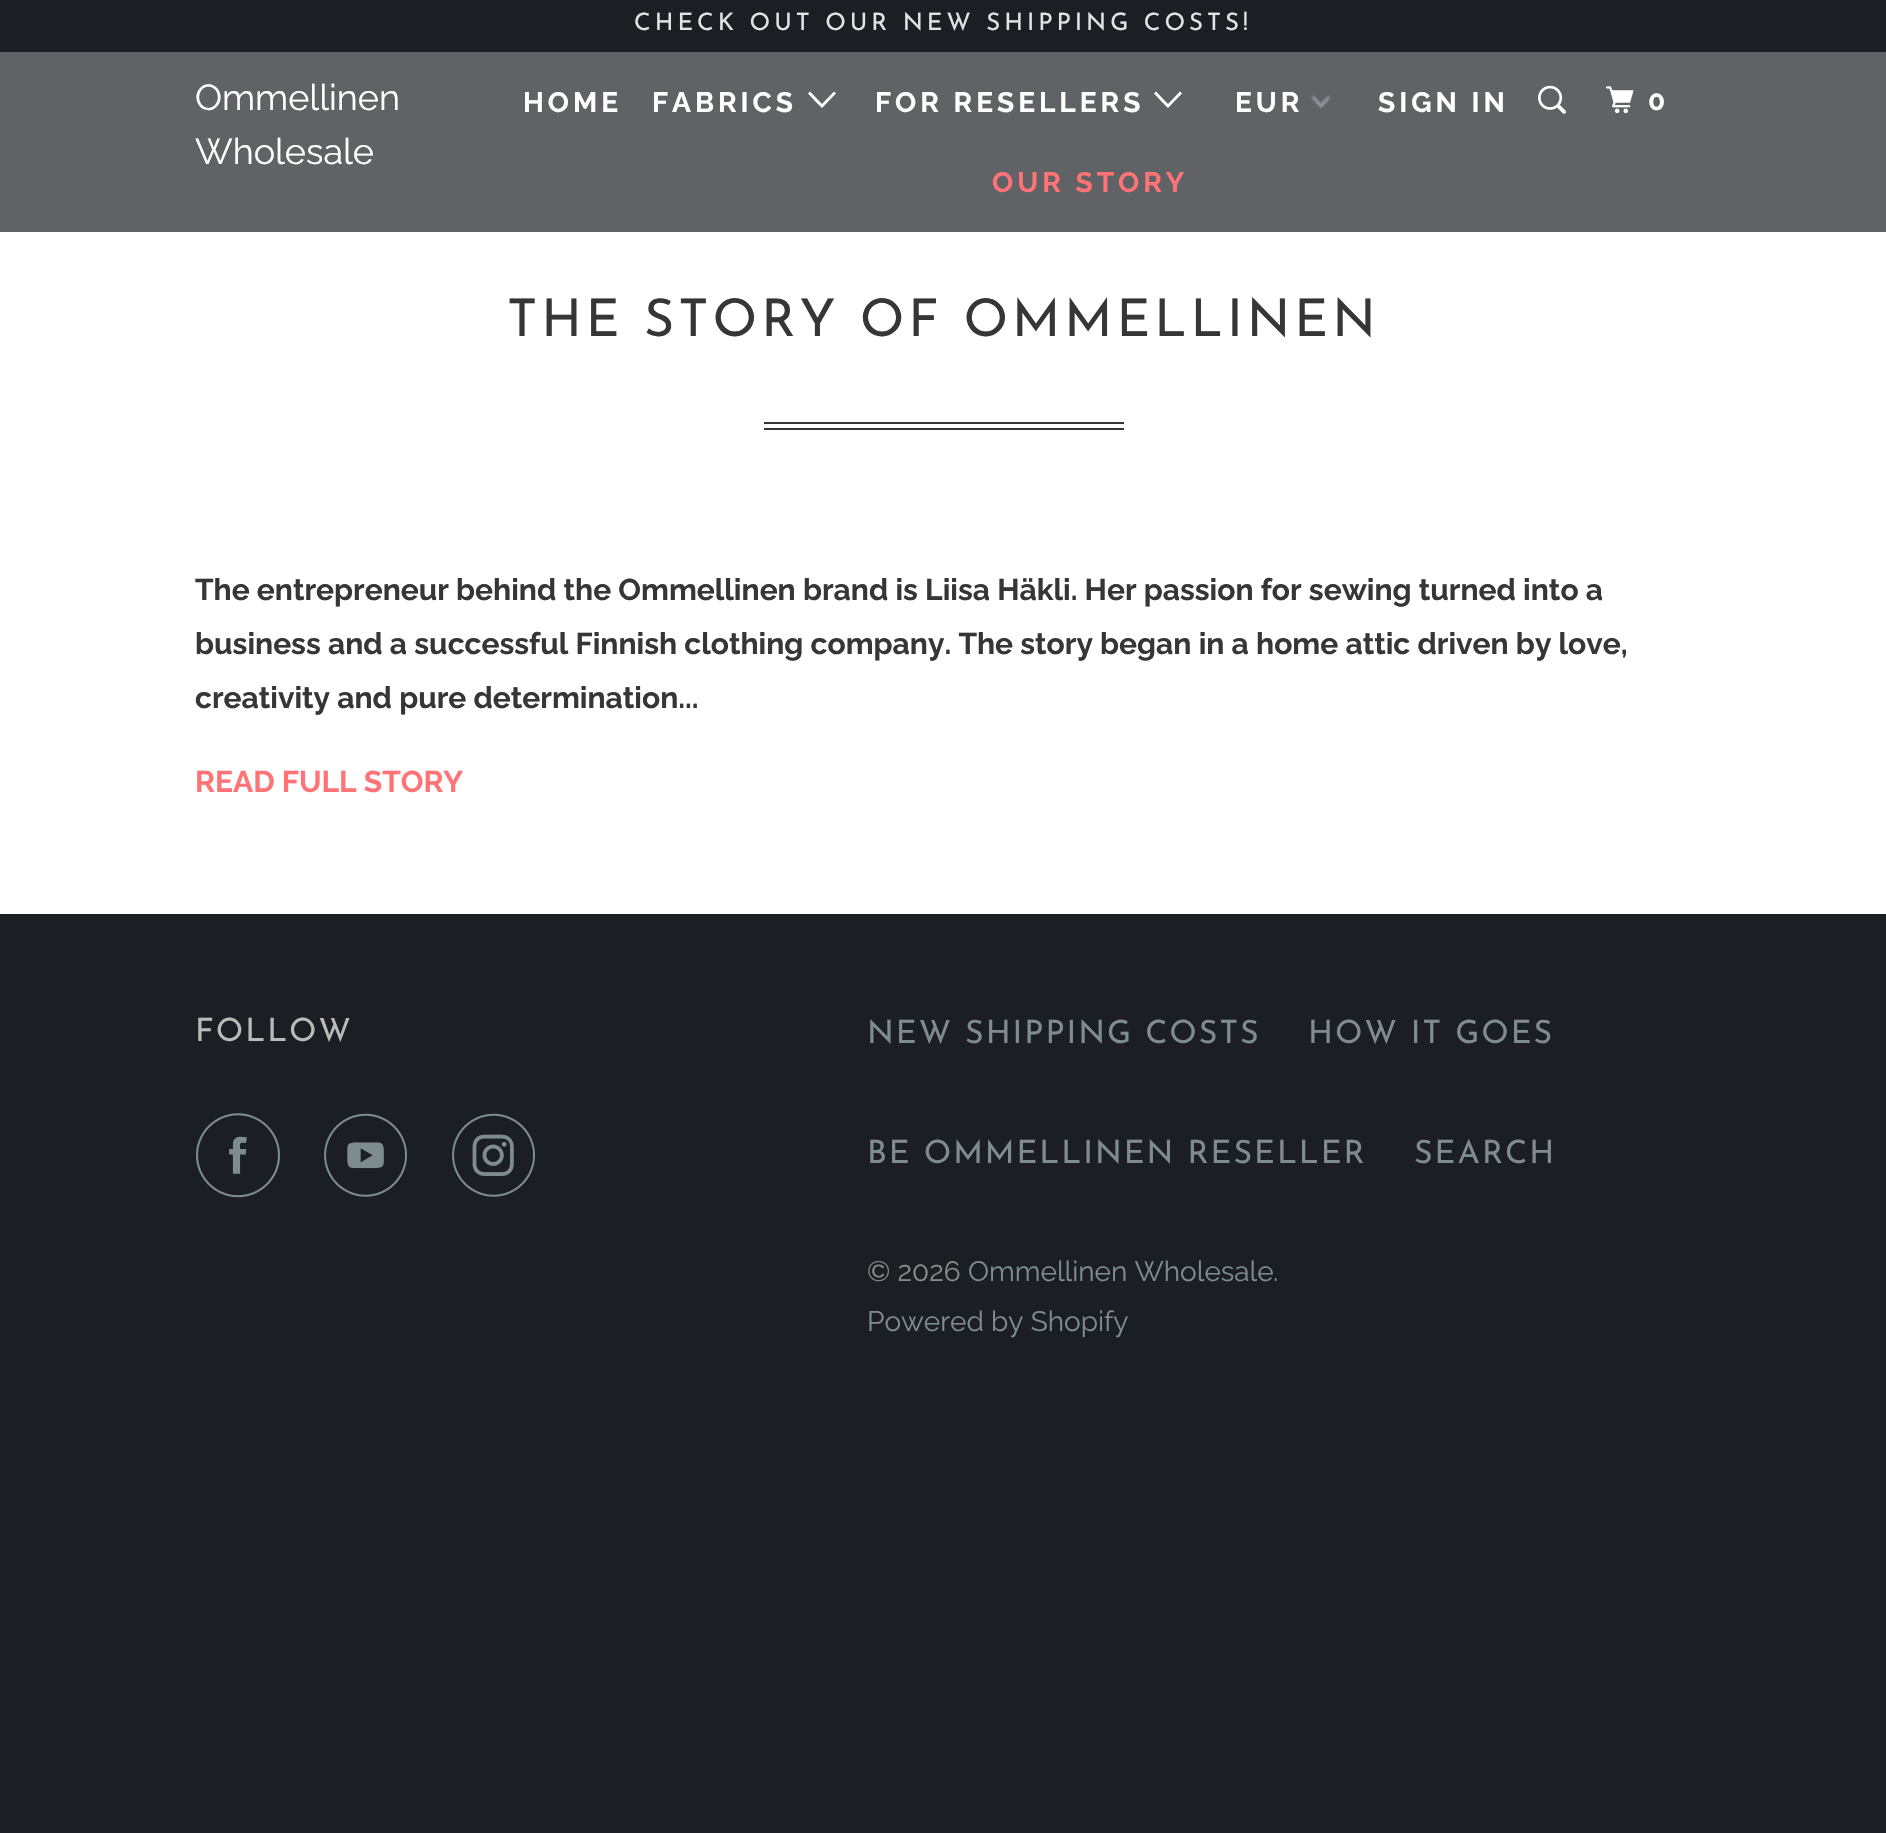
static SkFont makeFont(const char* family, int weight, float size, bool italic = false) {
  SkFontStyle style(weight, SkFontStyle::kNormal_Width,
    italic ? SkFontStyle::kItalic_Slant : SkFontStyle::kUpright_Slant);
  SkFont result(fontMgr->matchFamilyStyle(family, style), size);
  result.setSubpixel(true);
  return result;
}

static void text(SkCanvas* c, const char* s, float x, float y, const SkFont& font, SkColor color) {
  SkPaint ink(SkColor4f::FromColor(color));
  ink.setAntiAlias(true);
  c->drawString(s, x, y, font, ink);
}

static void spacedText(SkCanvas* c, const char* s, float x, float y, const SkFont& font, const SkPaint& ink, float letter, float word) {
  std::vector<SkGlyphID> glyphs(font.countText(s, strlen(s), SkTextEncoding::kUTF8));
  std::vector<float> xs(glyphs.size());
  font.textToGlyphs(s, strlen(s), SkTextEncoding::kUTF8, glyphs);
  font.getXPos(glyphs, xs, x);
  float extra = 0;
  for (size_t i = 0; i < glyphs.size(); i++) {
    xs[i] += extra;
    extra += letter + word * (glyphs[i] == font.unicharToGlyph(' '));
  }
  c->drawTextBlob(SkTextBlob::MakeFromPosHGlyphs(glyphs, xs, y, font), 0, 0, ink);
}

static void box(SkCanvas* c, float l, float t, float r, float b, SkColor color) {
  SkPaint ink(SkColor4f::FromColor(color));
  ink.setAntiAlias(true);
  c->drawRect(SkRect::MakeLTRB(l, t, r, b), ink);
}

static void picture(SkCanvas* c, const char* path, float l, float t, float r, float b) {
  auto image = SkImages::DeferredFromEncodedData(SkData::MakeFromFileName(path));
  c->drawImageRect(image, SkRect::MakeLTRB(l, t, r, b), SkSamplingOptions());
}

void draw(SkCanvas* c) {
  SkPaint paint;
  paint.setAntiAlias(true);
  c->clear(0xff1b1f23);
  box(c, 0, 232, 1886, 914, 0xffffffff);
  SkFont face1 = makeFont("Josefin Sans", 400, 24);
  paint.setColor(0xffe3e3e3);
  spacedText(c, "CHECK OUT OUR NEW SHIPPING COSTS!", 634, 30, face1, paint, 4, 0);
  box(c, 0, 52, 1886, 232, 0xff606265);
  SkFont face2 = makeFont("Raleway", 400, 36);
  text(c, "Ommellinen", 195, 110, face2, 0xffffffff);
  text(c, "Wholesale", 195, 164, face2, 0xffffffff);
  SkFont face3 = makeFont("Raleway", 700, 28);
  paint.setColor(0xffffffff);
  spacedText(c, "HOME", 523, 112, face3, paint, 4, 0);
  spacedText(c, "FABRICS", 652, 112, face3, paint, 4, 0);
  c->drawPath(SkPathBuilder().moveTo(815, 101).lineTo(808, 93.5f).lineTo(810, 91.5f).lineTo(822, 104).lineTo(834, 91.5f).lineTo(836, 93.5f).lineTo(822, 108).close().detach(), paint);
  spacedText(c, "FOR RESELLERS", 875, 112, face3, paint, 4, 0);
  c->drawPath(SkPathBuilder().moveTo(1161, 101).lineTo(1154, 93.5f).lineTo(1156, 91.5f).lineTo(1168, 104).lineTo(1180, 91.5f).lineTo(1182, 93.5f).lineTo(1168, 108).close().detach(), paint);
  paint.setColor(0xffff7377);
  spacedText(c, "OUR STORY", 992, 192, face3, paint, 4, 0);
  picture(c, "img_01.png", 1311, 95, 1331, 109);
  paint.setColor(0xffffffff);
  spacedText(c, "EUR", 1235, 112, face3, paint, 4, 0);
  spacedText(c, "SIGN IN", 1378, 112, face3, paint, 4, 0);
  picture(c, "img_02.png", 1538, 85, 1566, 114);
  picture(c, "img_03.png", 1606, 86, 1634, 114);
  spacedText(c, "0", 1648, 110, face3, paint, 4, 0);
  SkFont face4 = makeFont("Josefin Sans", 400, 52);
  paint.setColor(0xff363636);
  spacedText(c, "THE STORY OF OMMELLINEN", 507, 336, face4, paint, 4, 0);
  box(c, 764, 422, 1124, 424, 0xff363636);
  box(c, 764, 428, 1124, 430, 0xff363636);
  SkFont face5 = makeFont("Raleway", 700, 30);
  text(c, "The entrepreneur behind the Ommellinen brand is Liisa Häkli. Her passion for sewing turned into a", 195, 600, face5, 0xff363636);
  text(c, "business and a successful Finnish clothing company. The story began in a home attic driven by love,", 195, 654, face5, 0xff363636);
  text(c, "creativity and pure determination...", 195, 708, face5, 0xff363636);
  text(c, "READ FULL STORY", 195, 792, face5, 0xffff7377);
  SkFont face6 = makeFont("Josefin Sans", 400, 32);
  paint.setColor(0xffbababa);
  spacedText(c, "FOLLOW", 195, 1041, face6, paint, 2, 0);
  picture(c, "img_04.png", 196, 1113, 280, 1198);
  picture(c, "img_05.png", 324, 1113, 407, 1197);
  picture(c, "img_06.png", 452, 1113, 535, 1197);
  paint.setColor(0xff7f8c8d);
  spacedText(c, "NEW SHIPPING COSTS", 867, 1043, face6, paint, 2, 0);
  spacedText(c, "HOW IT GOES", 1308, 1043, face6, paint, 2, 0);
  spacedText(c, "BE OMMELLINEN RESELLER", 867, 1163, face6, paint, 2, 0);
  spacedText(c, "SEARCH", 1414, 1163, face6, paint, 2, 0);
  SkFont face7 = makeFont("Raleway", 400, 28);
  text(c, "© 2026", 867, 1281, face7, 0xff8d8a8a);
  text(c, "Ommellinen Wholesale", 968, 1281, face7, 0xff7f8c8d);
  text(c, ".", 1273, 1281, face7, 0xff8d8a8a);
  text(c, "Powered by Shopify", 867, 1331, face7, 0xff7f8c8d);
}
